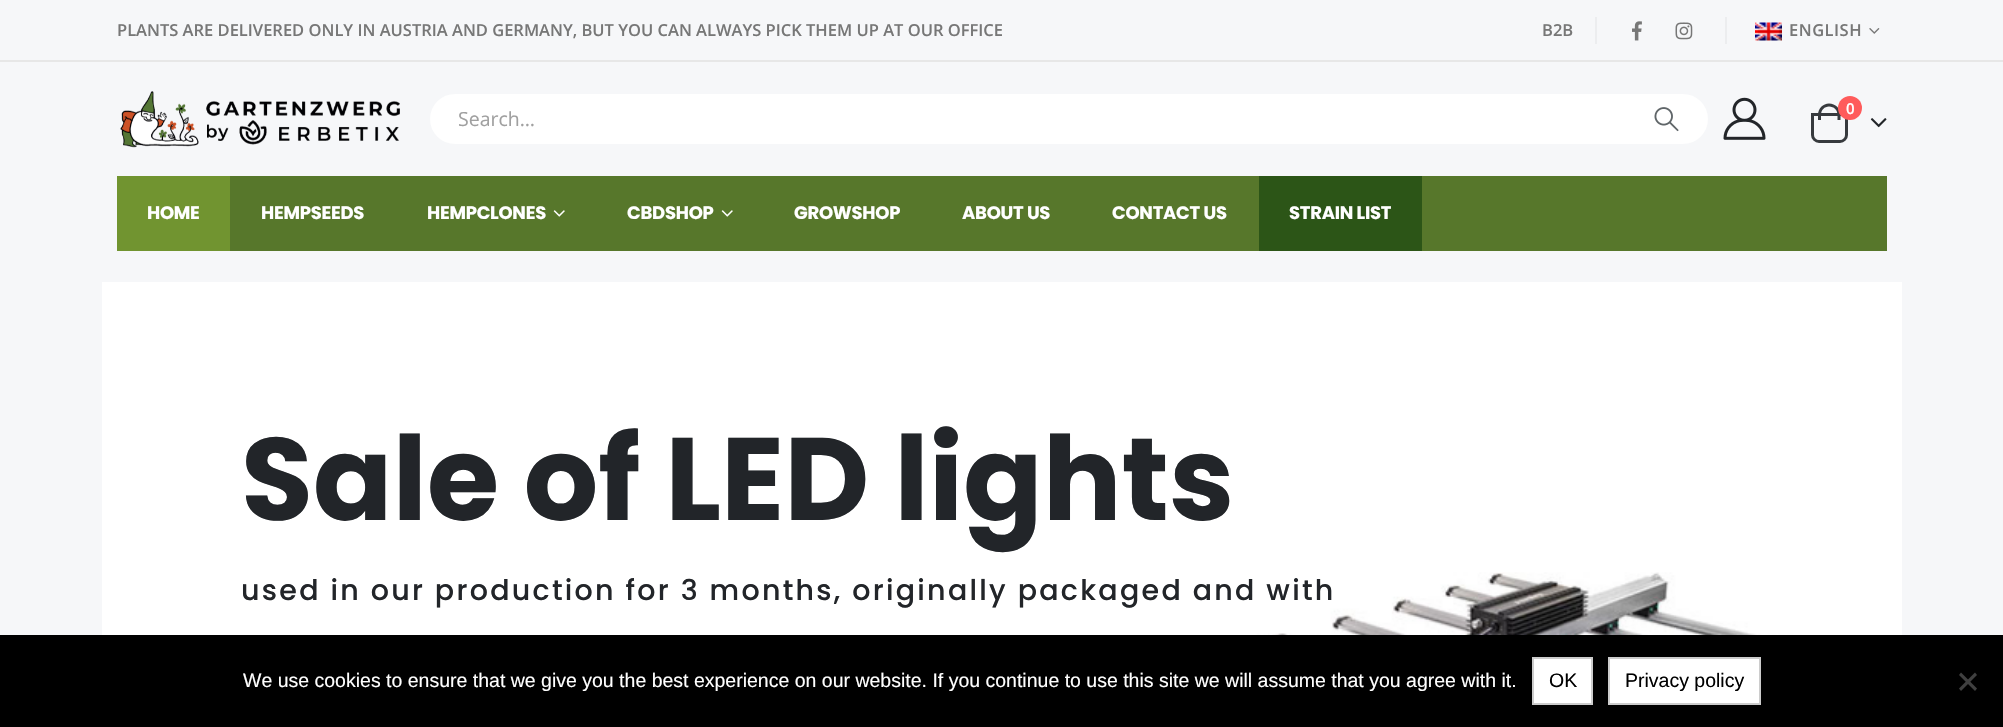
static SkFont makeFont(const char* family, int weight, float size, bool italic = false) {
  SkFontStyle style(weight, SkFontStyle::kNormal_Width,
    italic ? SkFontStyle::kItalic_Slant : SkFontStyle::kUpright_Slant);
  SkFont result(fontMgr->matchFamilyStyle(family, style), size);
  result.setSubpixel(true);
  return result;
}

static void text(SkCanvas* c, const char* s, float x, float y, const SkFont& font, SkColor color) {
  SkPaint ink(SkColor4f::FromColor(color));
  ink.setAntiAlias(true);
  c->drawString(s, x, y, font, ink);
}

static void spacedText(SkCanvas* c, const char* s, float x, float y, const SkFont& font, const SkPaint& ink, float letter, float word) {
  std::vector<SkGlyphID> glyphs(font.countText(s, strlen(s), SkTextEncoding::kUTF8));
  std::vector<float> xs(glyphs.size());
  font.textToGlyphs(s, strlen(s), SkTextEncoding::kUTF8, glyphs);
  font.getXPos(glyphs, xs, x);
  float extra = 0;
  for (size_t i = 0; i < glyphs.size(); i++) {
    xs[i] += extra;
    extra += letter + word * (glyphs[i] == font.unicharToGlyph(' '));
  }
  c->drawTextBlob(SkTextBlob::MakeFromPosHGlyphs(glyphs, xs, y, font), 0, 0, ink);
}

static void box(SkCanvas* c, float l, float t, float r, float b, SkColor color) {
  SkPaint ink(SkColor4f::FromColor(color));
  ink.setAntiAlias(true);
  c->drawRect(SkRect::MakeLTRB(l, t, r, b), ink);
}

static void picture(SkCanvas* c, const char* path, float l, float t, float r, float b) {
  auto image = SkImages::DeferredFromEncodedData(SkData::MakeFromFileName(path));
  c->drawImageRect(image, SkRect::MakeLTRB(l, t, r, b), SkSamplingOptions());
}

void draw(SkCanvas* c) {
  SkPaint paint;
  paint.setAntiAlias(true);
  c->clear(0xfff6f7f9);
  box(c, 0, 60, 2003, 62, 0xffe7e7e7);
  SkFont face1 = makeFont("Open Sans", 600, 16.5f);
  text(c, "PLANTS ARE DELIVERED ONLY IN AUSTRIA AND GERMANY, BUT YOU CAN ALWAYS PICK THEM UP AT OUR OFFICE", 117, 36, face1, 0xff777777);
  text(c, "B2B", 1542, 36, face1, 0xff777777);
  box(c, 1595, 17, 1597, 44, 0xffecedef);
  picture(c, "img_01.png", 1632, 21, 1642, 41);
  picture(c, "img_02.png", 1675, 22, 1693, 40);
  box(c, 1725, 17, 1727, 44, 0xffecedef);
  picture(c, "img_03.png", 1755, 22, 1782, 41);
  paint.setColor(0xff777777);
  spacedText(c, "ENGLISH", 1789, 36, face1, paint, 0.5f, 0);
  picture(c, "img_04.png", 1869, 28, 1880, 34);
  picture(c, "img_05.png", 120, 91, 400, 148);
  picture(c, "img_06.png", 1723, 97, 1766, 140);
  paint.setStyle(SkPaint::kStroke_Style);
  paint.setStrokeWidth(3);
  paint.setColor(0xff373a3e);
  c->drawPath(SkPathBuilder().moveTo(1812.5f, 114.5f).lineTo(1846.5f, 114.5f).lineTo(1846.5f, 135).cubicTo(1846.5f, 138.5f, 1843.5f, 141.5f, 1840, 141.5f).lineTo(1819, 141.5f).cubicTo(1815.5f, 141.5f, 1812.5f, 138.5f, 1812.5f, 135).close().detach(), paint);
  paint.setStyle(SkPaint::kFill_Style);
  c->drawPath(SkPathBuilder(SkPathFillType::kEvenOdd).moveTo(1829, 103.5f).cubicTo(1835.5f, 103.5f, 1840.5f, 108.5f, 1840.5f, 115).lineTo(1840.5f, 120).lineTo(1818, 120).lineTo(1818, 115).cubicTo(1818, 108.5f, 1823, 103.5f, 1829, 103.5f).close().moveTo(1829, 106.5f).cubicTo(1834, 106.5f, 1837.5f, 110, 1837.5f, 115).lineTo(1837.5f, 120).lineTo(1821, 120).lineTo(1821, 115).cubicTo(1821, 110, 1824.5f, 106.5f, 1829, 106.5f).close().detach(), paint);
  paint.setColor(0xffff5b5b);
  c->drawCircle(1850, 108, 12, paint);
  SkFont face2 = makeFont("Open Sans", 600, 15);
  text(c, "0", 1846, 114, face2, 0xffffffff);
  picture(c, "img_07.png", 1870, 118, 1887, 128);
  paint.setColor(0xffffffff);
  c->drawRoundRect(SkRect::MakeLTRB(429, 93, 1709, 145), 26, 26, paint);
  paint.setStyle(SkPaint::kStroke_Style);
  paint.setStrokeWidth(2);
  paint.setColor(0xfff6f7f9);
  c->drawRoundRect(SkRect::MakeLTRB(429, 93, 1709, 145), 26, 26, paint);
  SkFont face3 = makeFont("Open Sans", 400, 19.5f);
  text(c, "Search…", 458, 126, face3, 0xffa0a0a0);
  picture(c, "img_08.png", 1654, 107, 1679, 132);
  box(c, 230, 176, 1887, 251, 0xff57772b);
  box(c, 117, 176, 230, 251, 0xff719430);
  SkFont face4 = makeFont("Poppins", 700, 18);
  paint.setStyle(SkPaint::kFill_Style);
  paint.setColor(0xffffffff);
  spacedText(c, "HOME", 147, 219, face4, paint, -0.25f, 0);
  spacedText(c, "HEMPSEEDS", 261, 219, face4, paint, -0.25f, 0);
  spacedText(c, "HEMPCLONES", 427, 219, face4, paint, -0.25f, 0);
  picture(c, "img_09.png", 553, 210, 565, 217);
  spacedText(c, "CBDSHOP", 627, 219, face4, paint, -0.25f, 0);
  picture(c, "img_09.png", 721, 210, 733, 217);
  spacedText(c, "GROWSHOP", 794, 219, face4, paint, -0.25f, 0);
  spacedText(c, "ABOUT US", 962, 219, face4, paint, -0.25f, 0);
  spacedText(c, "CONTACT US", 1112, 219, face4, paint, -0.25f, 0);
  box(c, 1259, 176, 1422, 251, 0xff2c5517);
  spacedText(c, "STRAIN LIST", 1289, 219, face4, paint, -0.25f, 0);
  box(c, 102, 282, 1902, 635, 0xffffffff);
  SkFont face5 = makeFont("Poppins", 700, 117);
  text(c, "Sale of LED lights", 241, 520, face5, 0xff222529);
  picture(c, "img_10.png", 1184, 572, 1844, 635);
  SkFont face6 = makeFont("Poppins", 500, 28.5f);
  paint.setColor(0xff222529);
  spacedText(c, "used in our production for 3 months, originally packaged and with", 241, 600, face6, paint, 2.28f, 0);
  box(c, 0, 635, 2003, 727, 0xff000000);
  SkFont face7 = makeFont("Liberation Sans", 400, 19.5f);
  text(c, "We use cookies to ensure that we give you the best experience on our website. If you continue to use this site we will assume that you agree with it.", 243, 687, face7, 0xffffffff);
  paint.setColor(0xffffffff);
  c->drawRect(SkRect::MakeLTRB(1533, 658, 1592, 704), paint);
  paint.setStyle(SkPaint::kStroke_Style);
  paint.setColor(0xffcccccc);
  c->drawRect(SkRect::MakeLTRB(1533, 658, 1592, 704), paint);
  text(c, "OK", 1549, 687, face7, 0xff000000);
  paint.setStyle(SkPaint::kFill_Style);
  paint.setColor(0xffffffff);
  c->drawRect(SkRect::MakeLTRB(1609, 658, 1760, 704), paint);
  paint.setStyle(SkPaint::kStroke_Style);
  paint.setColor(0xffcccccc);
  c->drawRect(SkRect::MakeLTRB(1609, 658, 1760, 704), paint);
  text(c, "Privacy policy", 1625, 687, face7, 0xff000000);
  paint.setStyle(SkPaint::kFill_Style);
  paint.setColor(0xff404040);
  c->drawPath(SkPathBuilder().moveTo(1975, 672.5f).lineTo(1977, 675).lineTo(1961, 691).lineTo(1959, 688.5f).close().detach(), paint);
  c->drawPath(SkPathBuilder().moveTo(1959, 675).lineTo(1961, 672.5f).lineTo(1977, 688.5f).lineTo(1975, 691).close().detach(), paint);
}
